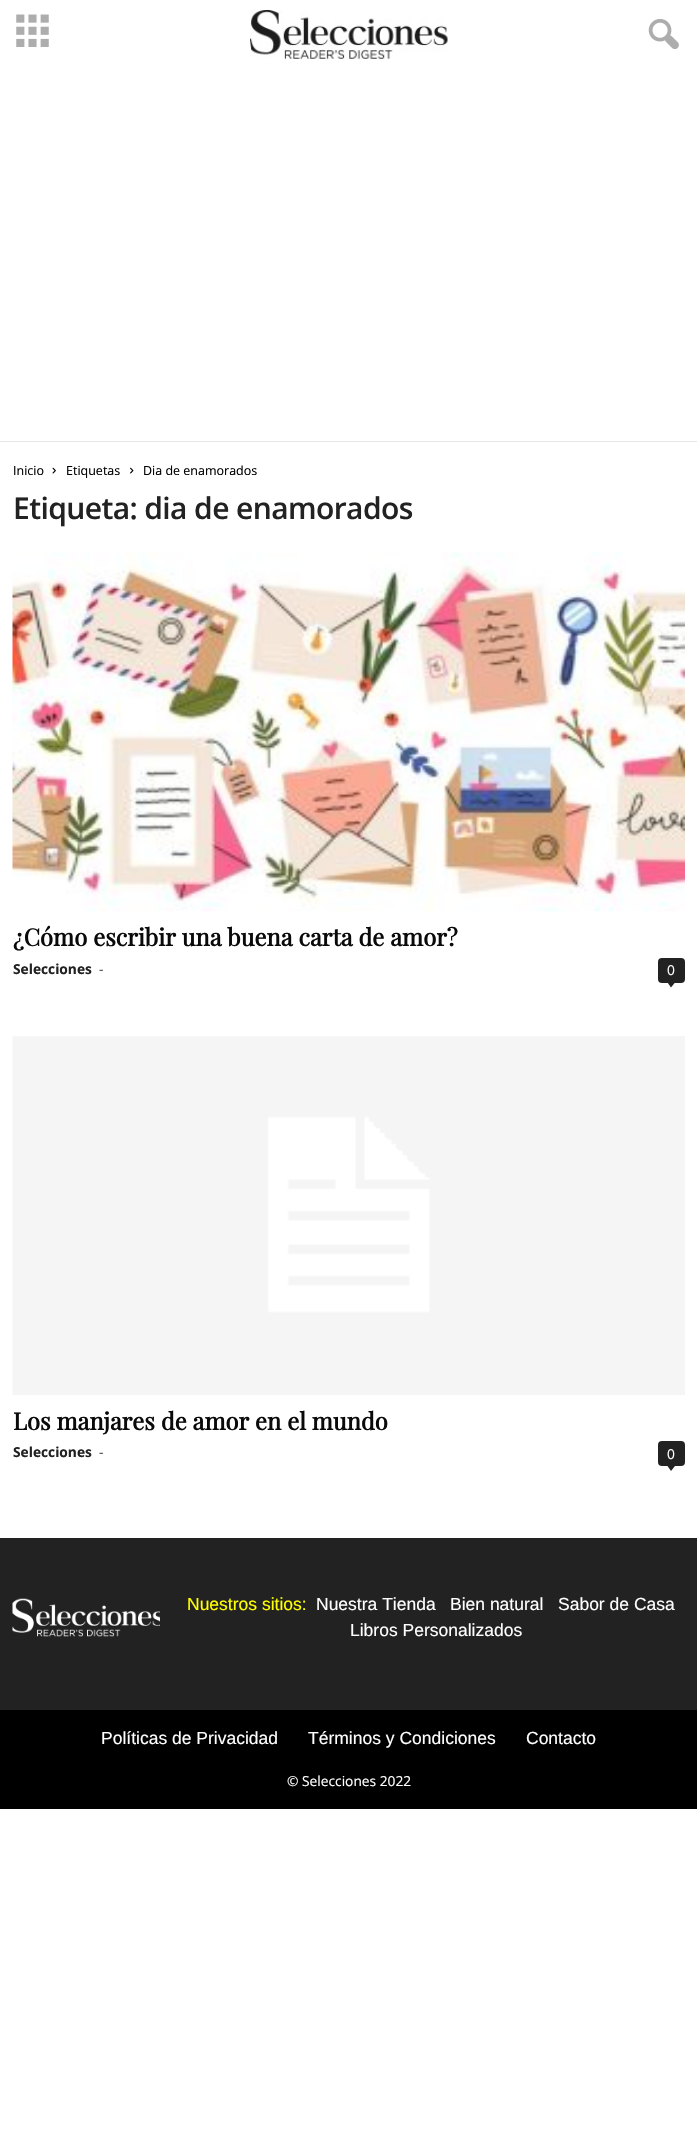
static SkFont makeFont(const char* family, int weight, float size, bool italic = false) {
  SkFontStyle style(weight, SkFontStyle::kNormal_Width,
    italic ? SkFontStyle::kItalic_Slant : SkFontStyle::kUpright_Slant);
  SkFont result(fontMgr->matchFamilyStyle(family, style), size);
  result.setSubpixel(true);
  return result;
}

static void text(SkCanvas* c, const char* s, float x, float y, const SkFont& font, SkColor color) {
  SkPaint ink(SkColor4f::FromColor(color));
  ink.setAntiAlias(true);
  c->drawString(s, x, y, font, ink);
}

static void spacedText(SkCanvas* c, const char* s, float x, float y, const SkFont& font, const SkPaint& ink, float letter, float word) {
  std::vector<SkGlyphID> glyphs(font.countText(s, strlen(s), SkTextEncoding::kUTF8));
  std::vector<float> xs(glyphs.size());
  font.textToGlyphs(s, strlen(s), SkTextEncoding::kUTF8, glyphs);
  font.getXPos(glyphs, xs, x);
  float extra = 0;
  for (size_t i = 0; i < glyphs.size(); i++) {
    xs[i] += extra;
    extra += letter + word * (glyphs[i] == font.unicharToGlyph(' '));
  }
  c->drawTextBlob(SkTextBlob::MakeFromPosHGlyphs(glyphs, xs, y, font), 0, 0, ink);
}

static void box(SkCanvas* c, float l, float t, float r, float b, SkColor color) {
  SkPaint ink(SkColor4f::FromColor(color));
  ink.setAntiAlias(true);
  c->drawRect(SkRect::MakeLTRB(l, t, r, b), ink);
}

static void roundBox(SkCanvas* c, float l, float t, float r, float b, float radius, SkColor color) {
  SkPaint ink(SkColor4f::FromColor(color));
  ink.setAntiAlias(true);
  c->drawRoundRect(SkRect::MakeLTRB(l, t, r, b), radius, radius, ink);
}

static void picture(SkCanvas* c, const char* path, float l, float t, float r, float b) {
  auto image = SkImages::DeferredFromEncodedData(SkData::MakeFromFileName(path));
  c->drawImageRect(image, SkRect::MakeLTRB(l, t, r, b), SkSamplingOptions());
}

void draw(SkCanvas* c) {
  SkPaint paint;
  paint.setAntiAlias(true);
  c->clear(0xffffffff);
  picture(c, "img_01.png", 16, 14, 49, 47);
  picture(c, "img_02.png", 250, 10, 448, 59);
  picture(c, "img_03.png", 648, 18, 679, 49);
  box(c, 0, 441, 697, 442, 0xffe6e6e6);
  SkFont face1 = makeFont("Open Sans", 400, 12.5f);
  text(c, "Inicio", 13, 475, face1, 0xff000000);
  picture(c, "img_04.png", 52, 467, 56, 474);
  text(c, "Etiquetas", 66, 475, face1, 0xff000000);
  picture(c, "img_05.png", 130, 467, 134, 474);
  text(c, "Dia de enamorados", 143, 475, face1, 0xff000000);
  SkFont face2 = makeFont("Open Sans", 600, 30);
  paint.setColor(0xff222222);
  spacedText(c, "Etiqueta: dia de enamorados", 13, 519, face2, paint, -0.6f, 0);
  picture(c, "img_06.png", 12, 552, 685, 912);
  SkFont face3 = makeFont("Playfair Display", 700, 23.75f);
  text(c, "¿Cómo escribir una buena carta de amor?", 13, 946, face3, 0xff0a0a0a);
  SkFont face4 = makeFont("Open Sans", 700, 13.75f);
  text(c, "Selecciones", 13, 974, face4, 0xff222222);
  SkFont face5 = makeFont("Open Sans", 400, 13.75f);
  text(c, "-", 99, 974, face5, 0xff444444);
  roundBox(c, 658, 958, 685, 983, 4, 0xff222222);
  text(c, "0", 667, 975, face5, 0xffffffff);
  c->drawPath(SkPathBuilder().moveTo(667.5f, 982.5f).lineTo(675, 982.5f).lineTo(671, 987.5f).close().detach(), paint);
  picture(c, "img_07.png", 12, 1036, 685, 1395);
  text(c, "Los manjares de amor en el mundo", 13, 1430, face3, 0xff0a0a0a);
  text(c, "Selecciones", 13, 1457, face4, 0xff222222);
  text(c, "-", 99, 1457, face5, 0xff444444);
  roundBox(c, 658, 1441, 685, 1466, 4, 0xff222222);
  text(c, "0", 667, 1459, face5, 0xffffffff);
  c->drawPath(SkPathBuilder().moveTo(667.5f, 1466).lineTo(675, 1466).lineTo(671, 1471).close().detach(), paint);
  box(c, 0, 1538, 697, 1710, 0xff222222);
  picture(c, "img_08.png", 12, 1598, 160, 1637);
  SkFont face6 = makeFont("Liberation Sans", 400, 17.5f);
  text(c, "Nuestros sitios:", 187, 1610, face6, 0xffffff00);
  text(c, "Nuestra Tienda", 316, 1610, face6, 0xffffffff);
  text(c, "Bien natural", 450, 1610, face6, 0xffffffff);
  text(c, "Sabor de Casa", 558, 1610, face6, 0xffffffff);
  text(c, "Libros Personalizados", 350, 1636, face6, 0xffffffff);
  box(c, 0, 1710, 697, 1809, 0xff000000);
  text(c, "Políticas de Privacidad", 101, 1744, face6, 0xffffffff);
  text(c, "Términos y Condiciones", 308, 1744, face6, 0xffffffff);
  text(c, "Contacto", 526, 1744, face6, 0xffffffff);
  text(c, "© Selecciones 2022", 287, 1786, face5, 0xffffffff);
}
